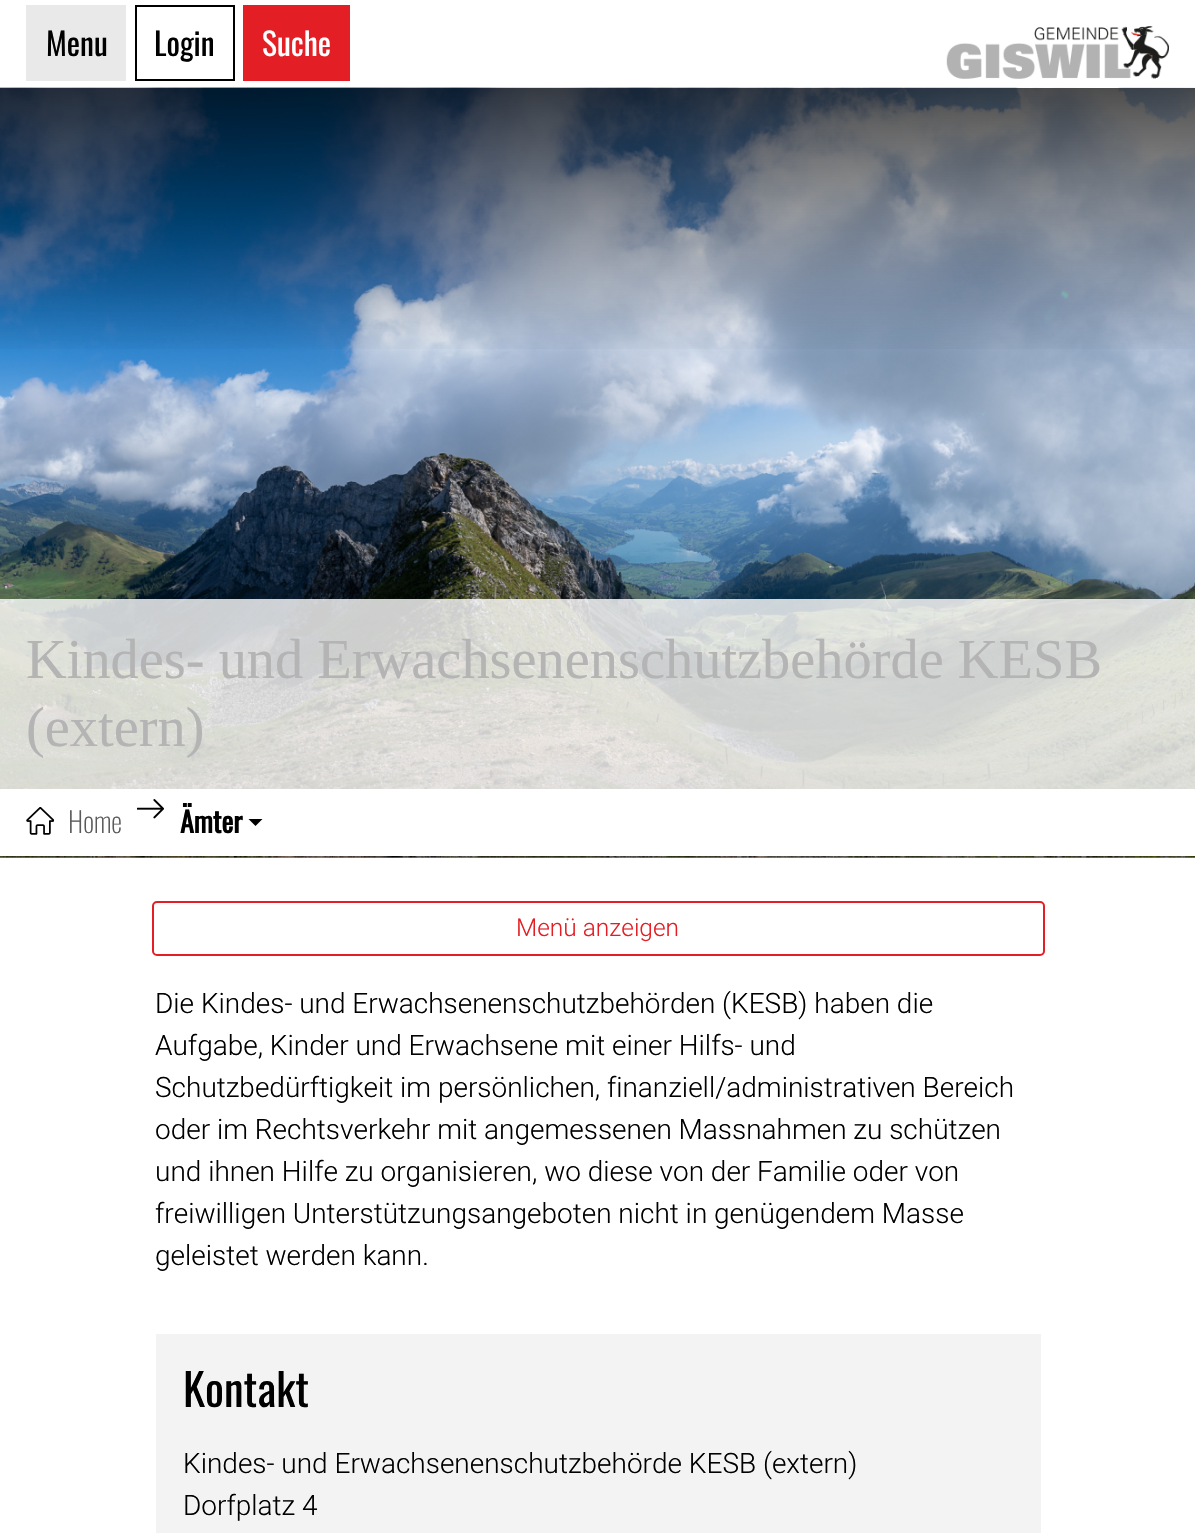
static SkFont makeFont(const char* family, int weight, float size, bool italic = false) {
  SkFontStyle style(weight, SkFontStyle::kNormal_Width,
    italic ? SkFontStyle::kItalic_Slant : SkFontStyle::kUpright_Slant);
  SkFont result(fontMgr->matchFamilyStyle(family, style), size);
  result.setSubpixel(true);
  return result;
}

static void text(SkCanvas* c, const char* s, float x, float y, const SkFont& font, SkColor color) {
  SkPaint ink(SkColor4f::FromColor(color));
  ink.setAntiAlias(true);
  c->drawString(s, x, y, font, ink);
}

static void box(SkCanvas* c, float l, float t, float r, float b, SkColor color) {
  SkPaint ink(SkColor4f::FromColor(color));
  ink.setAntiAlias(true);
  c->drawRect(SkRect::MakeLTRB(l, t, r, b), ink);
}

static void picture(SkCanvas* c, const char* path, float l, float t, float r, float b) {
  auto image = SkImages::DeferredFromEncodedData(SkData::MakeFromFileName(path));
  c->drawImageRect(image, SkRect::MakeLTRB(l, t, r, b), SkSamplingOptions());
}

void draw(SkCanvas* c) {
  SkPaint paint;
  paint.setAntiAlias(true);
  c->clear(0xffffffff);
  box(c, 26, 5, 126, 81, 0xffe9e9e9);
  SkFont face1 = makeFont("Oswald", 400, 31.5f);
  text(c, "Menu", 46, 56, face1, 0xff000000);
  paint.setStyle(SkPaint::kStroke_Style);
  paint.setStrokeWidth(2);
  paint.setColor(0xff000000);
  c->drawRect(SkRect::MakeLTRB(136, 6, 234, 80), paint);
  text(c, "Login", 154, 56, face1, 0xff000000);
  box(c, 243, 5, 350, 81, 0xffe31e24);
  text(c, "Suche", 262, 56, face1, 0xffffffff);
  picture(c, "img_01.png", 946, 26, 1169, 79);
  picture(c, "img_02.png", 0, 87, 1195, 858);
  paint.setStyle(SkPaint::kFill_Style);
  {
    const SkColor colors[] = {0xb3000000, 0x00000000};
    const float stops[] = {0, 0.35f};
    const SkPoint ends[] = {{598, 87}, {598, 858}};
    paint.setShader(SkGradientShader::MakeLinear(ends, colors, stops, 2, SkTileMode::kClamp));
    paint.setAlpha(255);
  }
  c->drawRect(SkRect::MakeLTRB(0, 88, 1195, 349), paint);
  {
    const SkColor colors[] = {0x00000000, 0x66000000};
    const float stops[] = {0, 1};
    const SkPoint ends[] = {{598, 665}, {598, 858}};
    paint.setShader(SkGradientShader::MakeLinear(ends, colors, stops, 2, SkTileMode::kClamp));
    paint.setAlpha(255);
  }
  c->drawRect(SkRect::MakeLTRB(0, 675, 1195, 858), paint);
  box(c, 0, 599, 1195, 789, 0xccffffff);
  SkFont face2 = makeFont("Liberation Serif", 400, 56.4f);
  text(c, "Kindes- und Erwachsenenschutzbehörde KESB", 26, 678, face2, 0xffb4b4b4);
  text(c, "(extern)", 26, 746, face2, 0xffb4b4b4);
  box(c, 0, 789, 1195, 856, 0xffffffff);
  picture(c, "img_03.png", 26, 807, 54, 835);
  SkFont face3 = makeFont("Oswald", 200, 28);
  text(c, "Home", 68, 833, face3, 0xff595a5c);
  picture(c, "img_04.png", 137, 799, 164, 819);
  SkFont face4 = makeFont("Oswald", 700, 28);
  text(c, "Ämter", 180, 833, face4, 0xff000000);
  paint.setShader(nullptr);
  paint.setColor(0xff000000);
  c->drawPath(SkPathBuilder().moveTo(248.5f, 819).lineTo(262.5f, 819).lineTo(255.5f, 826).close().detach(), paint);
  paint.setStyle(SkPaint::kStroke_Style);
  paint.setColor(0xffe31e24);
  c->drawRoundRect(SkRect::MakeLTRB(153, 902, 1044, 955), 4, 4, paint);
  SkFont face5 = makeFont("Roboto", 300, 24.5f);
  text(c, "Menü anzeigen", 516, 936, face5, 0xffe31e24);
  SkFont face6 = makeFont("Roboto", 300, 28);
  text(c, "Die Kindes- und Erwachsenenschutzbehörden (KESB) haben die", 155, 1013, face6, 0xff000000);
  text(c, "Aufgabe, Kinder und Erwachsene mit einer Hilfs- und", 155, 1055, face6, 0xff000000);
  text(c, "Schutzbedürftigkeit im persönlichen, finanziell/administrativen Bereich", 155, 1097, face6, 0xff000000);
  text(c, "oder im Rechtsverkehr mit angemessenen Massnahmen zu schützen", 155, 1139, face6, 0xff000000);
  text(c, "und ihnen Hilfe zu organisieren, wo diese von der Familie oder von", 155, 1181, face6, 0xff000000);
  text(c, "freiwilligen Unterstützungsangeboten nicht in genügendem Masse", 155, 1223, face6, 0xff000000);
  text(c, "geleistet werden kann.", 155, 1265, face6, 0xff000000);
  box(c, 156, 1334, 1041, 1533, 0xfff3f3f3);
  SkFont face7 = makeFont("Oswald", 400, 44.5f);
  text(c, "Kontakt", 183, 1407, face7, 0xff000000);
  text(c, "Kindes- und Erwachsenenschutzbehörde KESB (extern)", 183, 1473, face6, 0xff000000);
  text(c, "Dorfplatz 4", 183, 1515, face6, 0xff000000);
}
